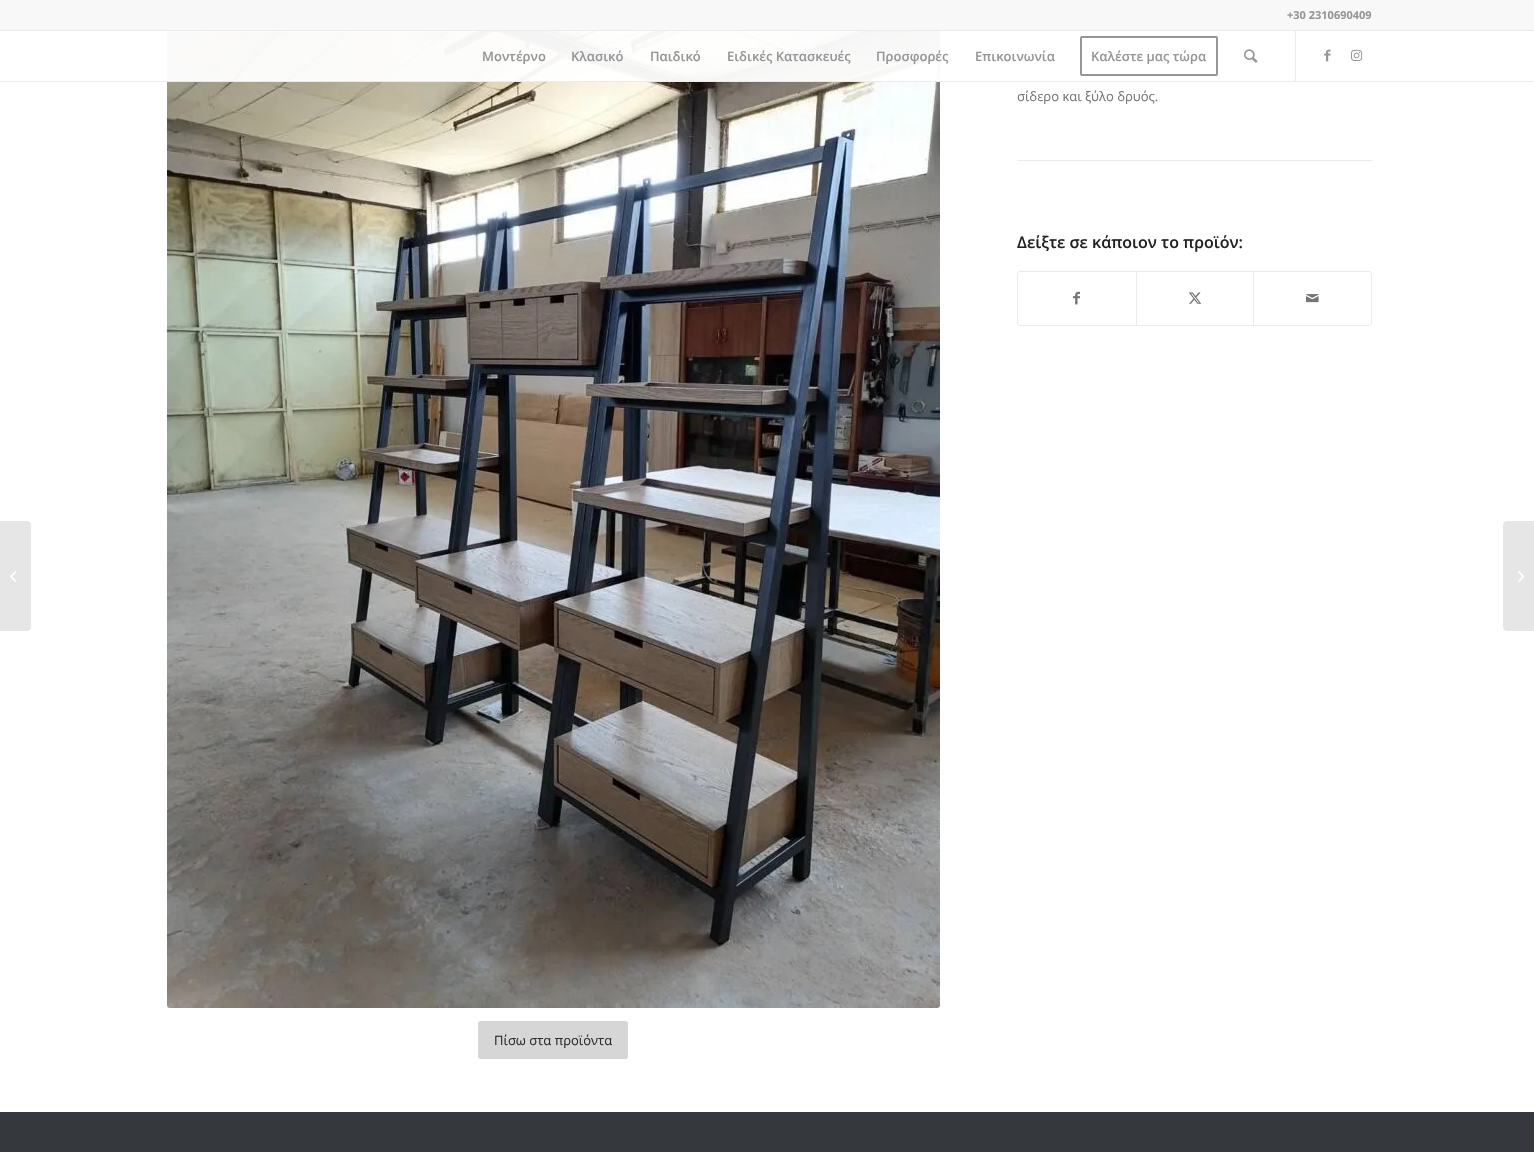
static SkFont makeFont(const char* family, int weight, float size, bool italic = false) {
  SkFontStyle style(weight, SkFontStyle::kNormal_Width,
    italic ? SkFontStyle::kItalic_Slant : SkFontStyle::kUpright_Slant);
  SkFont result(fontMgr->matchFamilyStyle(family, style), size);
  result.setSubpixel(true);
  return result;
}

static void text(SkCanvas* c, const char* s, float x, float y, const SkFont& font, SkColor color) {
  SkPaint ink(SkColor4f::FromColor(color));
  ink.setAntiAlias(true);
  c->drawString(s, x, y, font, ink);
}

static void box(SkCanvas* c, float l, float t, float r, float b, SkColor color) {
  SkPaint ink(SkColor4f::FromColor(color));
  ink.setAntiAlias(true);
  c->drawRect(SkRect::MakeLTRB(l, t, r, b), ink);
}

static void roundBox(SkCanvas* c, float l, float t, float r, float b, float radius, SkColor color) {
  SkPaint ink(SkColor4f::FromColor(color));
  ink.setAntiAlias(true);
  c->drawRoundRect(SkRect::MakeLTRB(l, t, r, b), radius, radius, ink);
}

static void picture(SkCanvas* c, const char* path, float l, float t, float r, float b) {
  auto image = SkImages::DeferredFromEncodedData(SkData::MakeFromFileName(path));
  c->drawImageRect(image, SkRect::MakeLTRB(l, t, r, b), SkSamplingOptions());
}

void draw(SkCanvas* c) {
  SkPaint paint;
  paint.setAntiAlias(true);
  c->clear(0xffffffff);
  box(c, 0, 0, 1534, 30, 0xfff8f8f8);
  box(c, 0, 30, 1534, 31, 0xffebebeb);
  SkFont face1 = makeFont("Open Sans", 700, 11);
  text(c, "+30 2310690409", 1287, 19, face1, 0xff969696);
  picture(c, "img_08.png", 167, 31, 940, 1008);
  box(c, 167, 31, 940, 81, 0xf2ffffff);
  box(c, 0, 81, 1534, 82, 0xffebebeb);
  box(c, 1295, 31, 1296, 81, 0xffebebeb);
  SkFont face2 = makeFont("Open Sans", 600, 13);
  text(c, "Μοντέρνο", 482, 61, face2, 0xff969696);
  text(c, "Κλασικό", 571, 61, face2, 0xff969696);
  text(c, "Παιδικό", 650, 61, face2, 0xff969696);
  text(c, "Ειδικές Κατασκευές", 727, 61, face2, 0xff969696);
  text(c, "Προσφορές", 876, 61, face2, 0xff969696);
  text(c, "Επικοινωνία", 975, 61, face2, 0xff969696);
  paint.setStyle(SkPaint::kStroke_Style);
  paint.setStrokeWidth(2);
  paint.setColor(0xff969696);
  c->drawRoundRect(SkRect::MakeLTRB(1081, 37, 1217, 75), 1, 1, paint);
  text(c, "Καλέστε μας τώρα", 1091, 61, face2, 0xff969696);
  picture(c, "img_01.png", 1244, 49, 1258, 63);
  picture(c, "img_02.png", 1324, 49, 1331, 62);
  picture(c, "img_03.png", 1351, 49, 1363, 61);
  paint.setStyle(SkPaint::kFill_Style);
  paint.setColor(0xffe6e6e6);
  c->drawPath(SkPathBuilder().moveTo(0, 521).lineTo(27, 521).cubicTo(29, 521, 31, 523, 31, 525).lineTo(31, 627).cubicTo(31, 629, 29, 631, 27, 631).lineTo(0, 631).close().detach(), paint);
  picture(c, "img_04.png", 10, 571, 17, 582);
  SkFont face3 = makeFont("Open Sans", 400, 13);
  text(c, "σίδερο και ξύλο δρυός.", 1017, 101, face3, 0xff757575);
  box(c, 1017, 160, 1372, 161, 0xffebebeb);
  SkFont face4 = makeFont("Open Sans", 600, 16);
  text(c, "Δείξτε σε κάποιον το προϊόν:", 1017, 248, face4, 0xff222222);
  paint.setStyle(SkPaint::kStroke_Style);
  paint.setStrokeWidth(1);
  paint.setColor(0xffebebeb);
  c->drawRoundRect(SkRect::MakeLTRB(1017.5f, 271.5f, 1371.5f, 325.5f), 2.5f, 2.5f, paint);
  picture(c, "img_05.png", 1073, 291, 1080, 305);
  box(c, 1136, 272, 1137, 325, 0xffebebeb);
  picture(c, "img_06.png", 1188, 292, 1202, 304);
  box(c, 1253, 272, 1254, 325, 0xffebebeb);
  picture(c, "img_07.png", 1306, 294, 1319, 303);
  roundBox(c, 478, 1021, 628, 1059, 3, 0xffd6d6d6);
  box(c, 480, 1058, 627, 1059, 0xffd6d6d6);
  text(c, "Πίσω στα προϊόντα", 494, 1045, face3, 0xff2d2d2d);
  box(c, 0, 1112, 1534, 1152, 0xff35383c);
  paint.setStyle(SkPaint::kFill_Style);
  paint.setColor(0xffe6e6e6);
  c->drawPath(SkPathBuilder().moveTo(1507, 521).lineTo(1534, 521).lineTo(1534, 631).lineTo(1507, 631).cubicTo(1505, 631, 1503, 629, 1503, 627).lineTo(1503, 525).cubicTo(1503, 523, 1505, 521, 1507, 521).close().detach(), paint);
  picture(c, "img_09.png", 1518, 571, 1525, 582);
}
